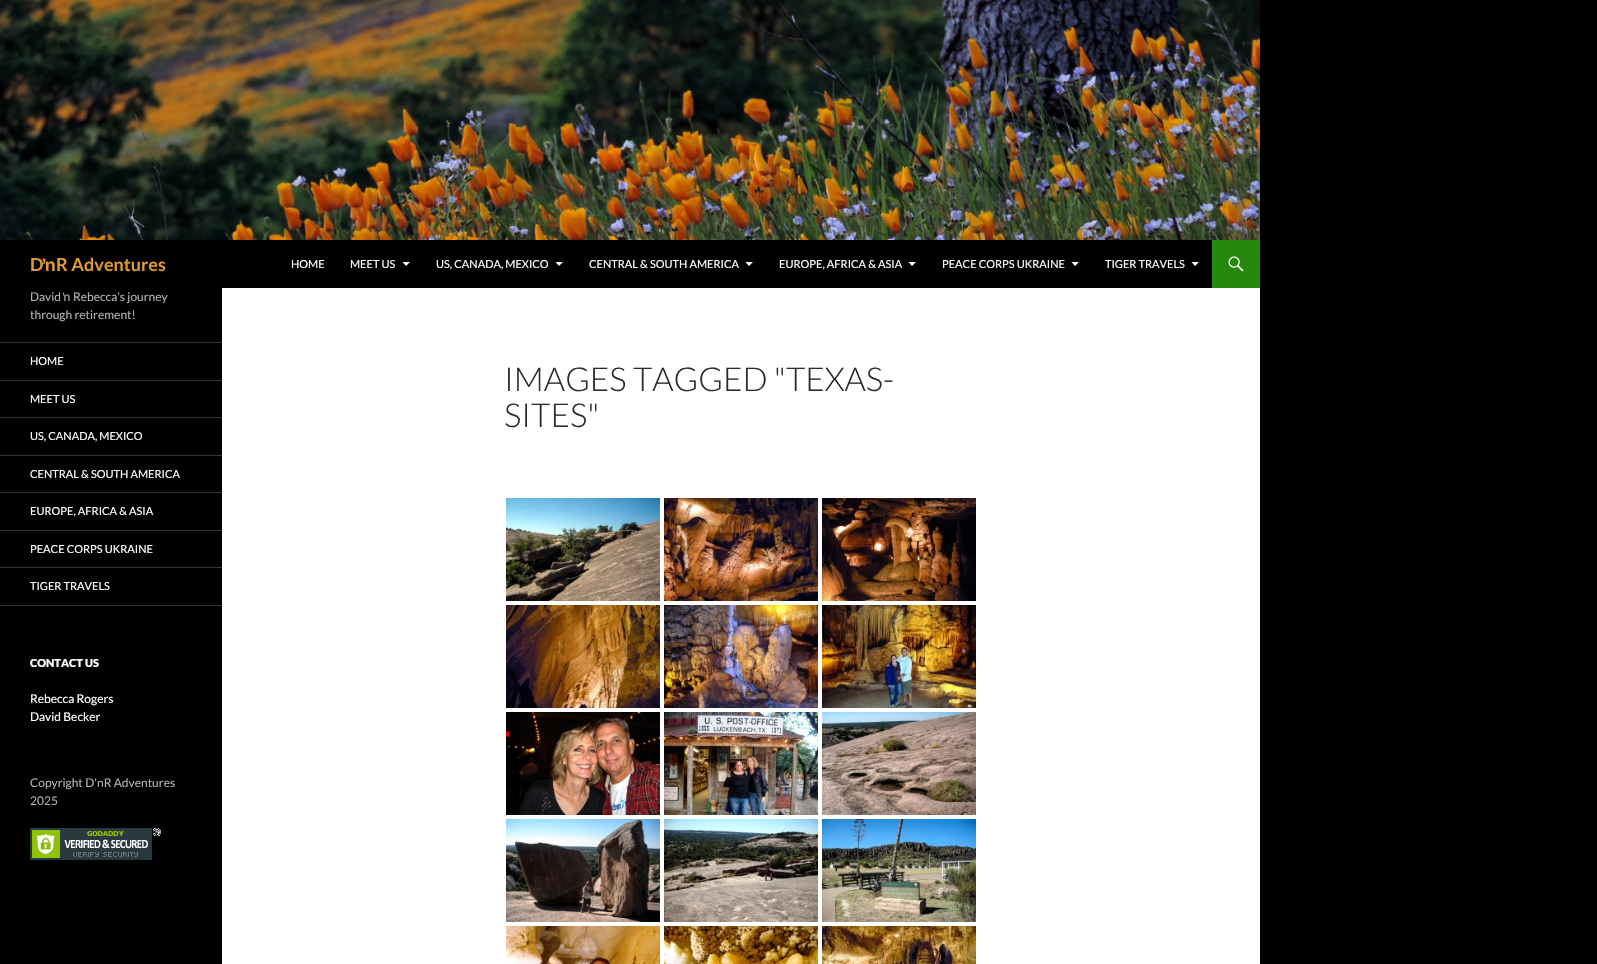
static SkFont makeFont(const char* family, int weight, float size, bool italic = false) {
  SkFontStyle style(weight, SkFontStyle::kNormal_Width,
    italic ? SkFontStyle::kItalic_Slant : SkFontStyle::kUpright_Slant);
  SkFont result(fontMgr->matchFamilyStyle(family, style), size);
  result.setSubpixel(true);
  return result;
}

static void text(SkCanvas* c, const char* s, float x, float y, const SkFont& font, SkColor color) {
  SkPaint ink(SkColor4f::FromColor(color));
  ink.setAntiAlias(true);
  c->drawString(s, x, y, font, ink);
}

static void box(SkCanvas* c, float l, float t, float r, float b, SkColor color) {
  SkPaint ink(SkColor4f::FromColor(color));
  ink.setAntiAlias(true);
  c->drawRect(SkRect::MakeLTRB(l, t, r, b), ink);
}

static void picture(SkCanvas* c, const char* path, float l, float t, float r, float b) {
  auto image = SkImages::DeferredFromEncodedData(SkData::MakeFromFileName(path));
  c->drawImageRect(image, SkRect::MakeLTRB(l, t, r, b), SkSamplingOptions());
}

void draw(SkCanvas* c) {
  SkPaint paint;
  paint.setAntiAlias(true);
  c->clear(0xff000000);
  box(c, 222, 288, 1260, 964, 0xffffffff);
  picture(c, "img_01.png", 0, 0, 1260, 240);
  SkFont face1 = makeFont("Lato", 700, 18);
  text(c, "D", 30, 271, face1, 0xffdd9933);
  SkFont face2 = makeFont("Liberation Sans", 700, 18);
  text(c, "ŉ", 43, 271, face2, 0xffdd9933);
  text(c, "R Adventures", 56, 271, face1, 0xffdd9933);
  SkFont face3 = makeFont("Lato", 400, 11);
  text(c, "HOME", 291, 268, face3, 0xffffffff);
  text(c, "MEET US", 350, 268, face3, 0xffffffff);
  paint.setColor(0xffffffff);
  c->drawPath(SkPathBuilder().moveTo(402.5f, 262).lineTo(406, 266).lineTo(410, 262).close().detach(), paint);
  text(c, "US, CANADA, MEXICO", 436, 268, face3, 0xffffffff);
  c->drawPath(SkPathBuilder().moveTo(555.5f, 262).lineTo(559, 266).lineTo(563, 262).close().detach(), paint);
  text(c, "CENTRAL & SOUTH AMERICA", 589, 268, face3, 0xffffffff);
  c->drawPath(SkPathBuilder().moveTo(745.5f, 262).lineTo(749, 266).lineTo(753, 262).close().detach(), paint);
  text(c, "EUROPE, AFRICA & ASIA", 779, 268, face3, 0xffffffff);
  c->drawPath(SkPathBuilder().moveTo(908.5f, 262).lineTo(912, 266).lineTo(916, 262).close().detach(), paint);
  text(c, "PEACE CORPS UKRAINE", 942, 268, face3, 0xffffffff);
  c->drawPath(SkPathBuilder().moveTo(1071.5f, 262).lineTo(1075, 266).lineTo(1079, 262).close().detach(), paint);
  text(c, "TIGER TRAVELS", 1105, 268, face3, 0xffffffff);
  c->drawPath(SkPathBuilder().moveTo(1191.5f, 262).lineTo(1195, 266).lineTo(1199, 262).close().detach(), paint);
  box(c, 1212, 240, 1260, 288, 0xff24890d);
  picture(c, "img_02.png", 1228, 256, 1244, 272);
  SkFont face4 = makeFont("Lato", 400, 12);
  text(c, "David", 30, 301, face4, 0xffb3b3b3);
  SkFont face5 = makeFont("Liberation Sans", 400, 12);
  text(c, "ŉ", 63, 301, face5, 0xffb3b3b3);
  text(c, "Rebecca’s journey", 73, 301, face4, 0xffb3b3b3);
  text(c, "through retirement!", 30, 319, face4, 0xffb3b3b3);
  box(c, 0, 605, 222, 606, 0xff333333);
  box(c, 0, 342, 222, 343, 0xff333333);
  text(c, "HOME", 30, 365, face3, 0xffffffff);
  box(c, 0, 380, 222, 381, 0xff333333);
  text(c, "MEET US", 30, 403, face3, 0xffffffff);
  box(c, 0, 417, 222, 418, 0xff333333);
  text(c, "US, CANADA, MEXICO", 30, 440, face3, 0xffffffff);
  box(c, 0, 455, 222, 456, 0xff333333);
  text(c, "CENTRAL & SOUTH AMERICA", 30, 478, face3, 0xffffffff);
  box(c, 0, 492, 222, 493, 0xff333333);
  text(c, "EUROPE, AFRICA & ASIA", 30, 515, face3, 0xffffffff);
  box(c, 0, 530, 222, 531, 0xff333333);
  text(c, "PEACE CORPS UKRAINE", 30, 553, face3, 0xffffffff);
  box(c, 0, 567, 222, 568, 0xff333333);
  text(c, "TIGER TRAVELS", 30, 590, face3, 0xffffffff);
  SkFont face6 = makeFont("Lato", 900, 11);
  text(c, "CONTACT US", 30, 667, face6, 0xffffffff);
  text(c, "Rebecca Rogers", 30, 703, face4, 0xffffffff);
  text(c, "David Becker", 30, 721, face4, 0xffffffff);
  text(c, "Copyright D'nR Adventures", 30, 787, face4, 0xffb3b3b3);
  text(c, "2025", 30, 805, face4, 0xffb3b3b3);
  picture(c, "img_03.png", 30, 828, 161, 860);
  SkFont face7 = makeFont("Lato", 300, 33);
  text(c, "IMAGES TAGGED \"TEXAS-", 504, 391, face7, 0xff2b2b2b);
  text(c, "SITES\"", 504, 427, face7, 0xff2b2b2b);
  picture(c, "img_04.png", 506, 498, 660, 601);
  picture(c, "img_05.png", 664, 498, 818, 601);
  picture(c, "img_06.png", 822, 498, 976, 601);
  picture(c, "img_07.png", 506, 605, 660, 708);
  picture(c, "img_08.png", 664, 605, 818, 708);
  picture(c, "img_09.png", 822, 605, 976, 708);
  picture(c, "img_10.png", 506, 712, 660, 815);
  picture(c, "img_11.png", 664, 712, 818, 815);
  picture(c, "img_12.png", 822, 712, 976, 815);
  picture(c, "img_13.png", 506, 819, 660, 922);
  picture(c, "img_14.png", 664, 819, 818, 922);
  picture(c, "img_15.png", 822, 819, 976, 922);
  picture(c, "img_16.png", 506, 926, 660, 964);
  picture(c, "img_17.png", 664, 926, 818, 964);
  picture(c, "img_18.png", 822, 926, 976, 964);
}
